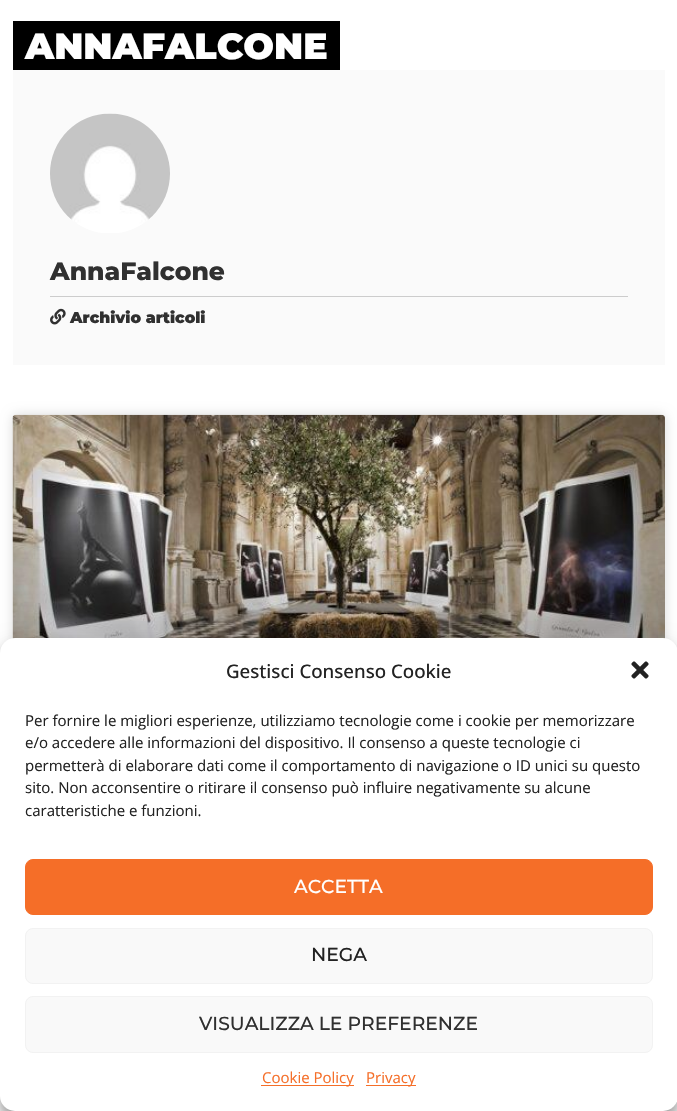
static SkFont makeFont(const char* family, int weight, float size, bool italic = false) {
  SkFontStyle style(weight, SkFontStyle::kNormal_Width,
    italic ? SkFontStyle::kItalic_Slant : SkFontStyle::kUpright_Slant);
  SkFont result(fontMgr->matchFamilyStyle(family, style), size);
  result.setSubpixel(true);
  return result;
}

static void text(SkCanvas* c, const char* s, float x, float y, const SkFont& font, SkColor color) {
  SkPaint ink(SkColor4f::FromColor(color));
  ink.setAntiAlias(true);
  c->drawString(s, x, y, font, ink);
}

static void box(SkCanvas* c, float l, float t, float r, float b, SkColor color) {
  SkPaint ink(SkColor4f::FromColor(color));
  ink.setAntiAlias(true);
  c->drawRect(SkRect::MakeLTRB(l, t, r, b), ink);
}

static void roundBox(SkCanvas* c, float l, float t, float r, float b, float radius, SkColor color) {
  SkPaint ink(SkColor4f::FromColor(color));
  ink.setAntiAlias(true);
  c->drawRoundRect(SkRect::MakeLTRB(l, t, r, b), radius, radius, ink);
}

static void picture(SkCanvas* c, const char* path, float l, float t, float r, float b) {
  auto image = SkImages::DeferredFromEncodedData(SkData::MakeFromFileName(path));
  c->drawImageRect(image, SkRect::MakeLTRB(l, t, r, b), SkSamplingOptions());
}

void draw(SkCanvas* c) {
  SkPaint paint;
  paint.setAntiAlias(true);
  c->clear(0xffffffff);
  box(c, 13, 21, 340, 70, 0xff000000);
  SkFont face1 = makeFont("Montserrat", 900, 36.25f);
  text(c, "ANNAFALCONE", 25, 59, face1, 0xffffffff);
  box(c, 13, 70, 665, 365, 0xfffafafa);
  picture(c, "img_01.png", 50, 113, 170, 233);
  SkFont face2 = makeFont("Montserrat", 800, 25);
  text(c, "AnnaFalcone", 50, 280, face2, 0xff303030);
  box(c, 50, 296, 628, 297, 0xffcccccc);
  picture(c, "img_02.png", 50, 308, 66, 325);
  SkFont face3 = makeFont("Montserrat", 900, 15.6f);
  text(c, "Archivio articoli", 70, 323, face3, 0xff303030);
  paint.setColor(0x26000000);
  paint.setMaskFilter(SkMaskFilter::MakeBlur(kNormal_SkBlurStyle, 6));
  c->drawRoundRect(SkRect::MakeLTRB(13, 415, 665, 885), 4, 4, paint);
  paint.setMaskFilter(nullptr);
  picture(c, "img_03.png", 12, 414, 665, 639);
  {
    const SkColor colors[] = {0x59000000, 0x00000000};
    const float stops[] = {0, 0.75f};
    const SkPoint ends[] = {{339, 741}, {339, 415}};
    paint.setShader(SkGradientShader::MakeLinear(ends, colors, stops, 2, SkTileMode::kClamp));
    paint.setAlpha(255);
  }
  c->drawRect(SkRect::MakeLTRB(13, 512, 665, 639), paint);
  paint.setShader(nullptr);
  paint.setColor(0x3b000000);
  paint.setMaskFilter(SkMaskFilter::MakeBlur(kNormal_SkBlurStyle, 4));
  c->drawRoundRect(SkRect::MakeLTRB(0, 645, 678, 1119), 15, 15, paint);
  paint.setMaskFilter(nullptr);
  paint.setColor(0x30000000);
  paint.setMaskFilter(SkMaskFilter::MakeBlur(kNormal_SkBlurStyle, 12.5f));
  c->drawRoundRect(SkRect::MakeLTRB(0, 650, 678, 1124), 15, 15, paint);
  paint.setMaskFilter(nullptr);
  roundBox(c, 0, 638, 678, 1111, 15, 0xffffffff);
  SkFont face4 = makeFont("Open Sans", 500, 18.75f);
  text(c, "Gestisci Consenso Cookie", 226, 678, face4, 0xff222222);
  picture(c, "img_04.png", 631, 661, 649, 679);
  SkFont face5 = makeFont("Open Sans", 400, 15);
  text(c, "Per fornire le migliori esperienze, utilizziamo tecnologie come i cookie per memorizzare", 25, 726, face5, 0xff222222);
  text(c, "e/o accedere alle informazioni del dispositivo. Il consenso a queste tecnologie ci", 25, 748, face5, 0xff222222);
  text(c, "permetterà di elaborare dati come il comportamento di navigazione o ID unici su questo", 25, 771, face5, 0xff222222);
  text(c, "sito. Non acconsentire o ritirare il consenso può influire negativamente su alcune", 25, 793, face5, 0xff222222);
  text(c, "caratteristiche e funzioni.", 25, 816, face5, 0xff222222);
  paint.setColor(0xfff56e28);
  c->drawRoundRect(SkRect::MakeLTRB(25.5f, 859.5f, 652.5f, 914.5f), 7.5f, 7.5f, paint);
  paint.setStyle(SkPaint::kStroke_Style);
  paint.setStrokeWidth(1);
  c->drawRoundRect(SkRect::MakeLTRB(25.5f, 859.5f, 652.5f, 914.5f), 7.5f, 7.5f, paint);
  SkFont face6 = makeFont("Montserrat", 500, 18.75f);
  text(c, "ACCETTA", 294, 893, face6, 0xffffffff);
  paint.setStyle(SkPaint::kFill_Style);
  paint.setColor(0xfff9f9f9);
  c->drawRoundRect(SkRect::MakeLTRB(25.5f, 928.5f, 652.5f, 983.5f), 7.5f, 7.5f, paint);
  paint.setStyle(SkPaint::kStroke_Style);
  paint.setColor(0xfff2f2f2);
  c->drawRoundRect(SkRect::MakeLTRB(25.5f, 928.5f, 652.5f, 983.5f), 7.5f, 7.5f, paint);
  text(c, "NEGA", 311, 961, face6, 0xff222222);
  paint.setStyle(SkPaint::kFill_Style);
  paint.setColor(0xfff9f9f9);
  c->drawRoundRect(SkRect::MakeLTRB(25.5f, 996.5f, 652.5f, 1052.5f), 7.5f, 7.5f, paint);
  paint.setStyle(SkPaint::kStroke_Style);
  paint.setColor(0xfff2f2f2);
  c->drawRoundRect(SkRect::MakeLTRB(25.5f, 996.5f, 652.5f, 1052.5f), 7.5f, 7.5f, paint);
  text(c, "VISUALIZZA LE PREFERENZE", 199, 1030, face6, 0xff303030);
  box(c, 261, 1085, 354, 1086, 0xfff56e28);
  text(c, "Cookie Policy", 262, 1083, face5, 0xfff56e28);
  box(c, 366, 1085, 416, 1086, 0xfff56e28);
  text(c, "Privacy", 366, 1083, face5, 0xfff56e28);
}
